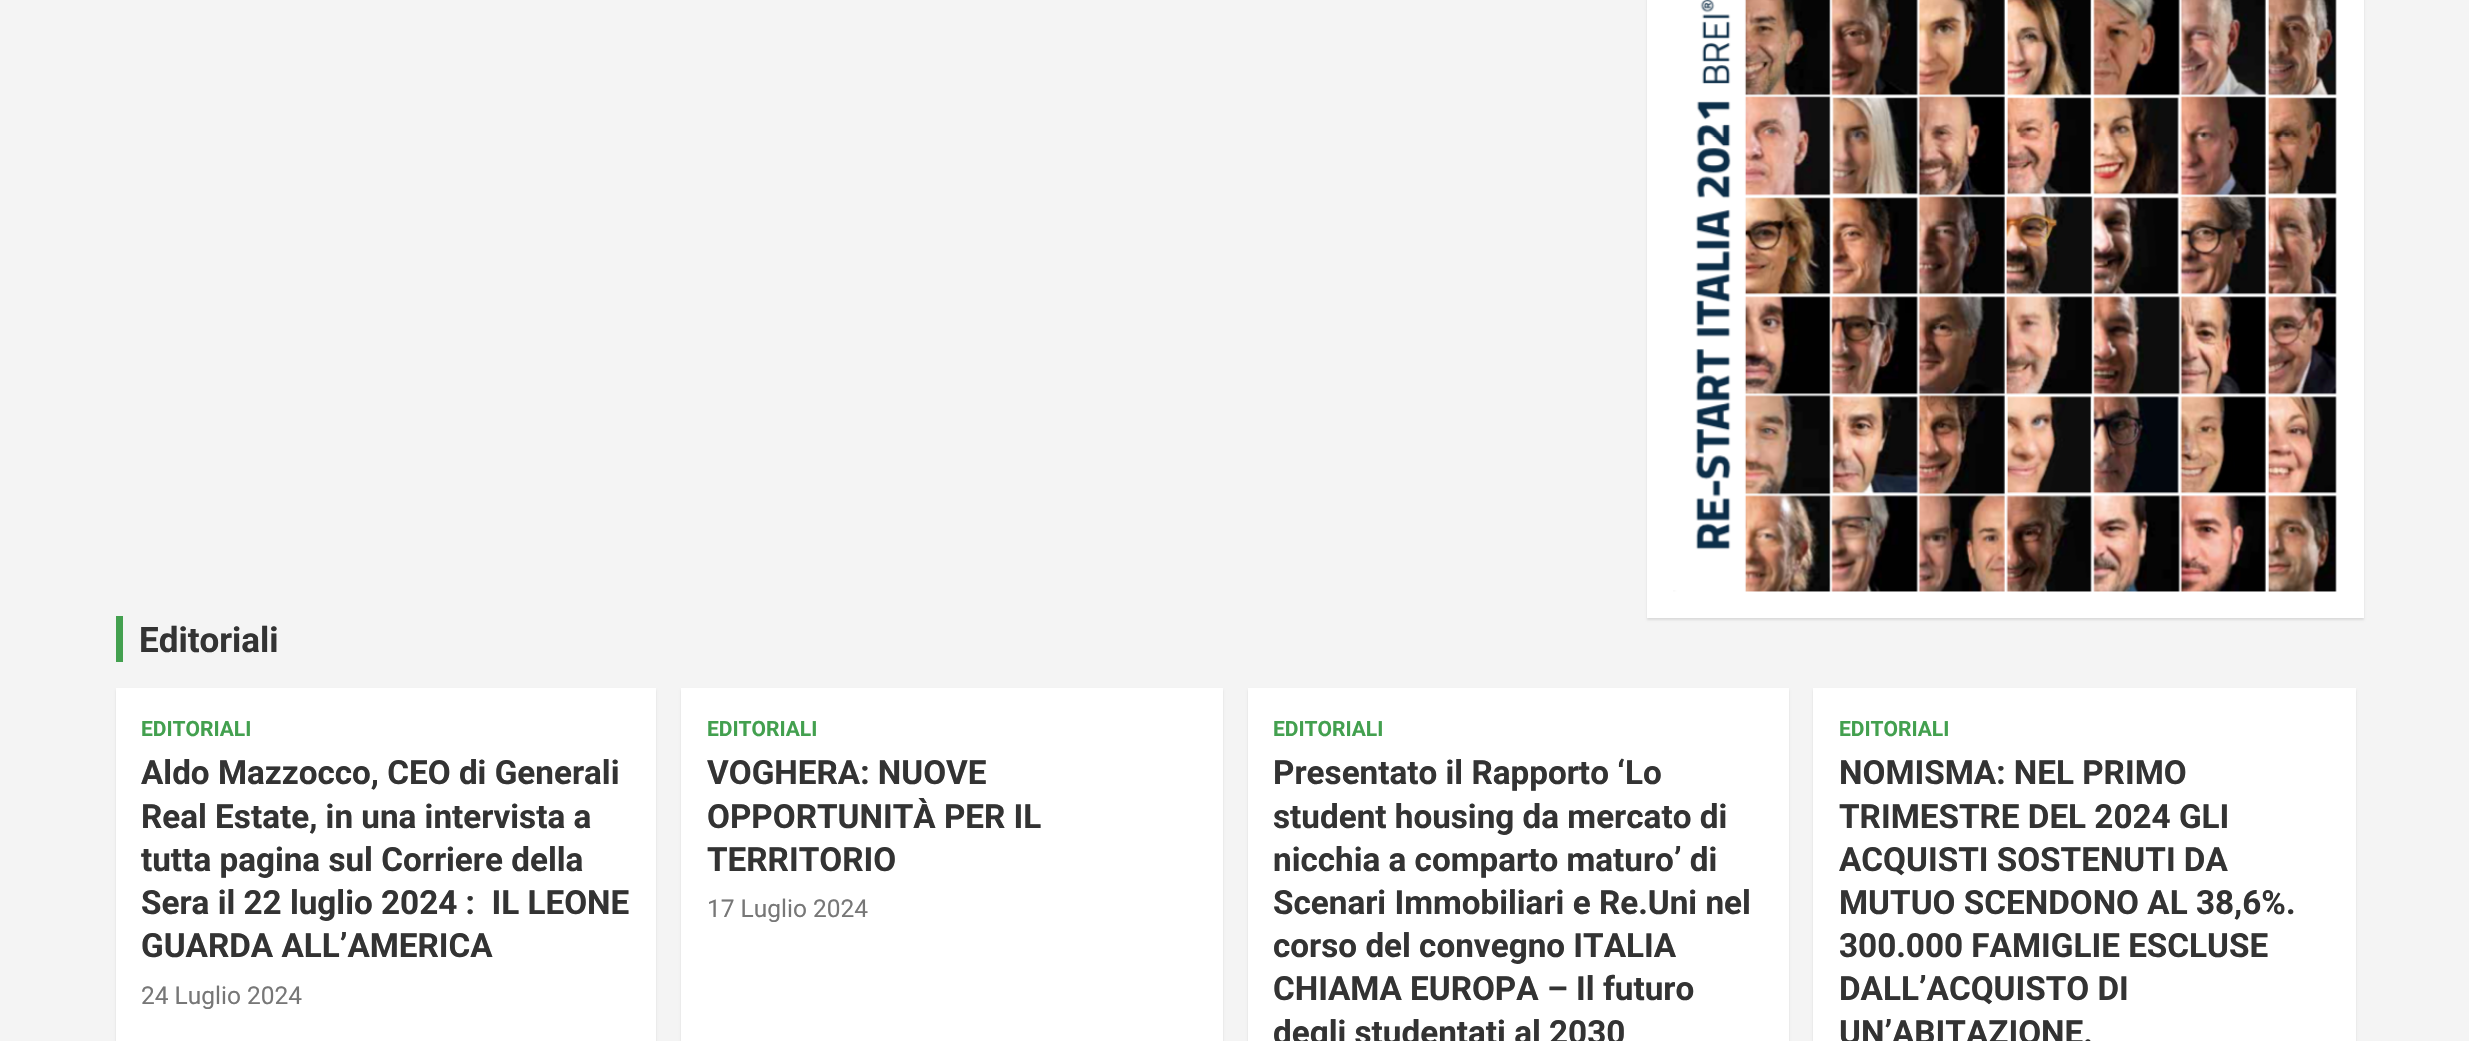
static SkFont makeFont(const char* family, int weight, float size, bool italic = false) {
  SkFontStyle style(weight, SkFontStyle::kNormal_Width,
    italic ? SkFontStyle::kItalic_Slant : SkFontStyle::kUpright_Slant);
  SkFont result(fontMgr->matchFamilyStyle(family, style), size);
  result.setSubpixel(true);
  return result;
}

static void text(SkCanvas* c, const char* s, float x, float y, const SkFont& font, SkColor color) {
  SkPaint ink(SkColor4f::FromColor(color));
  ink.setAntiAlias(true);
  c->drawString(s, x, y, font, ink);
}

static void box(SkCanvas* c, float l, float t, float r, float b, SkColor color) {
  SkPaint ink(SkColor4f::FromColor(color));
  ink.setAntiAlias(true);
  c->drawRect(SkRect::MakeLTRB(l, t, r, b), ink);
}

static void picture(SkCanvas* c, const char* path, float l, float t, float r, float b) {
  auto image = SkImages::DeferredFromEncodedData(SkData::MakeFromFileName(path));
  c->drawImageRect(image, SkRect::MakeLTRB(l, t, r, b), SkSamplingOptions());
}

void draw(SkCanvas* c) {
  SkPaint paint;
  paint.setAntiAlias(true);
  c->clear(0xfff4f4f4);
  paint.setColor(0x1a000000);
  paint.setMaskFilter(SkMaskFilter::MakeBlur(kNormal_SkBlurStyle, 1));
  c->drawRect(SkRect::MakeLTRB(1647, -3, 2364, 620), paint);
  paint.setMaskFilter(nullptr);
  box(c, 1647, 0, 2364, 618, 0xffffffff);
  picture(c, "img_01.png", 1673, 0, 2337, 592);
  box(c, 116, 616, 123, 662, 0xff43a04f);
  SkFont face1 = makeFont("Roboto", 700, 35);
  text(c, "Editoriali", 139, 652, face1, 0xff333333);
  paint.setMaskFilter(SkMaskFilter::MakeBlur(kNormal_SkBlurStyle, 1));
  c->drawRect(SkRect::MakeLTRB(116, 690, 656, 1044), paint);
  paint.setMaskFilter(nullptr);
  box(c, 116, 688, 656, 1041, 0xffffffff);
  SkFont face2 = makeFont("Roboto", 700, 21);
  text(c, "EDITORIALI", 141, 736, face2, 0xff43a04f);
  SkFont face3 = makeFont("Roboto", 700, 33.25f);
  text(c, "Aldo Mazzocco, CEO di Generali", 141, 784, face3, 0xff333333);
  text(c, "Real Estate, in una intervista a", 141, 828, face3, 0xff333333);
  text(c, "tutta pagina sul Corriere della", 141, 871, face3, 0xff333333);
  text(c, "Sera il 22 luglio 2024 :  IL LEONE", 141, 914, face3, 0xff333333);
  text(c, "GUARDA ALL’AMERICA", 141, 957, face3, 0xff333333);
  SkFont face4 = makeFont("Roboto", 400, 24.5f);
  text(c, "24 Luglio 2024", 141, 1004, face4, 0xff777777);
  paint.setMaskFilter(SkMaskFilter::MakeBlur(kNormal_SkBlurStyle, 1));
  c->drawRect(SkRect::MakeLTRB(681, 690, 1223, 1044), paint);
  paint.setMaskFilter(nullptr);
  box(c, 681, 688, 1223, 1041, 0xffffffff);
  text(c, "EDITORIALI", 707, 736, face2, 0xff43a04f);
  text(c, "VOGHERA: NUOVE", 707, 784, face3, 0xff333333);
  text(c, "OPPORTUNITÀ PER IL", 707, 828, face3, 0xff333333);
  text(c, "TERRITORIO", 707, 871, face3, 0xff333333);
  text(c, "17 Luglio 2024", 707, 917, face4, 0xff777777);
  paint.setMaskFilter(SkMaskFilter::MakeBlur(kNormal_SkBlurStyle, 1));
  c->drawRect(SkRect::MakeLTRB(1248, 690, 1789, 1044), paint);
  paint.setMaskFilter(nullptr);
  box(c, 1248, 688, 1789, 1041, 0xffffffff);
  text(c, "EDITORIALI", 1273, 736, face2, 0xff43a04f);
  text(c, "Presentato il Rapporto ‘Lo", 1273, 784, face3, 0xff333333);
  text(c, "student housing da mercato di", 1273, 828, face3, 0xff333333);
  text(c, "nicchia a comparto maturo’ di", 1273, 871, face3, 0xff333333);
  text(c, "Scenari Immobiliari e Re.Uni nel", 1273, 914, face3, 0xff333333);
  text(c, "corso del convegno ITALIA", 1273, 957, face3, 0xff333333);
  text(c, "CHIAMA EUROPA – Il futuro", 1273, 1000, face3, 0xff333333);
  text(c, "degli studentati al 2030", 1273, 1044, face3, 0xff333333);
  paint.setMaskFilter(SkMaskFilter::MakeBlur(kNormal_SkBlurStyle, 1));
  c->drawRect(SkRect::MakeLTRB(1813, 690, 2356, 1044), paint);
  paint.setMaskFilter(nullptr);
  box(c, 1813, 688, 2356, 1041, 0xffffffff);
  text(c, "EDITORIALI", 1839, 736, face2, 0xff43a04f);
  text(c, "NOMISMA: NEL PRIMO", 1839, 784, face3, 0xff333333);
  text(c, "TRIMESTRE DEL 2024 GLI", 1839, 828, face3, 0xff333333);
  text(c, "ACQUISTI SOSTENUTI DA", 1839, 871, face3, 0xff333333);
  text(c, "MUTUO SCENDONO AL 38,6%.", 1839, 914, face3, 0xff333333);
  text(c, "300.000 FAMIGLIE ESCLUSE", 1839, 957, face3, 0xff333333);
  text(c, "DALL’ACQUISTO DI", 1839, 1000, face3, 0xff333333);
  text(c, "UN’ABITAZIONE.", 1839, 1044, face3, 0xff333333);
}
